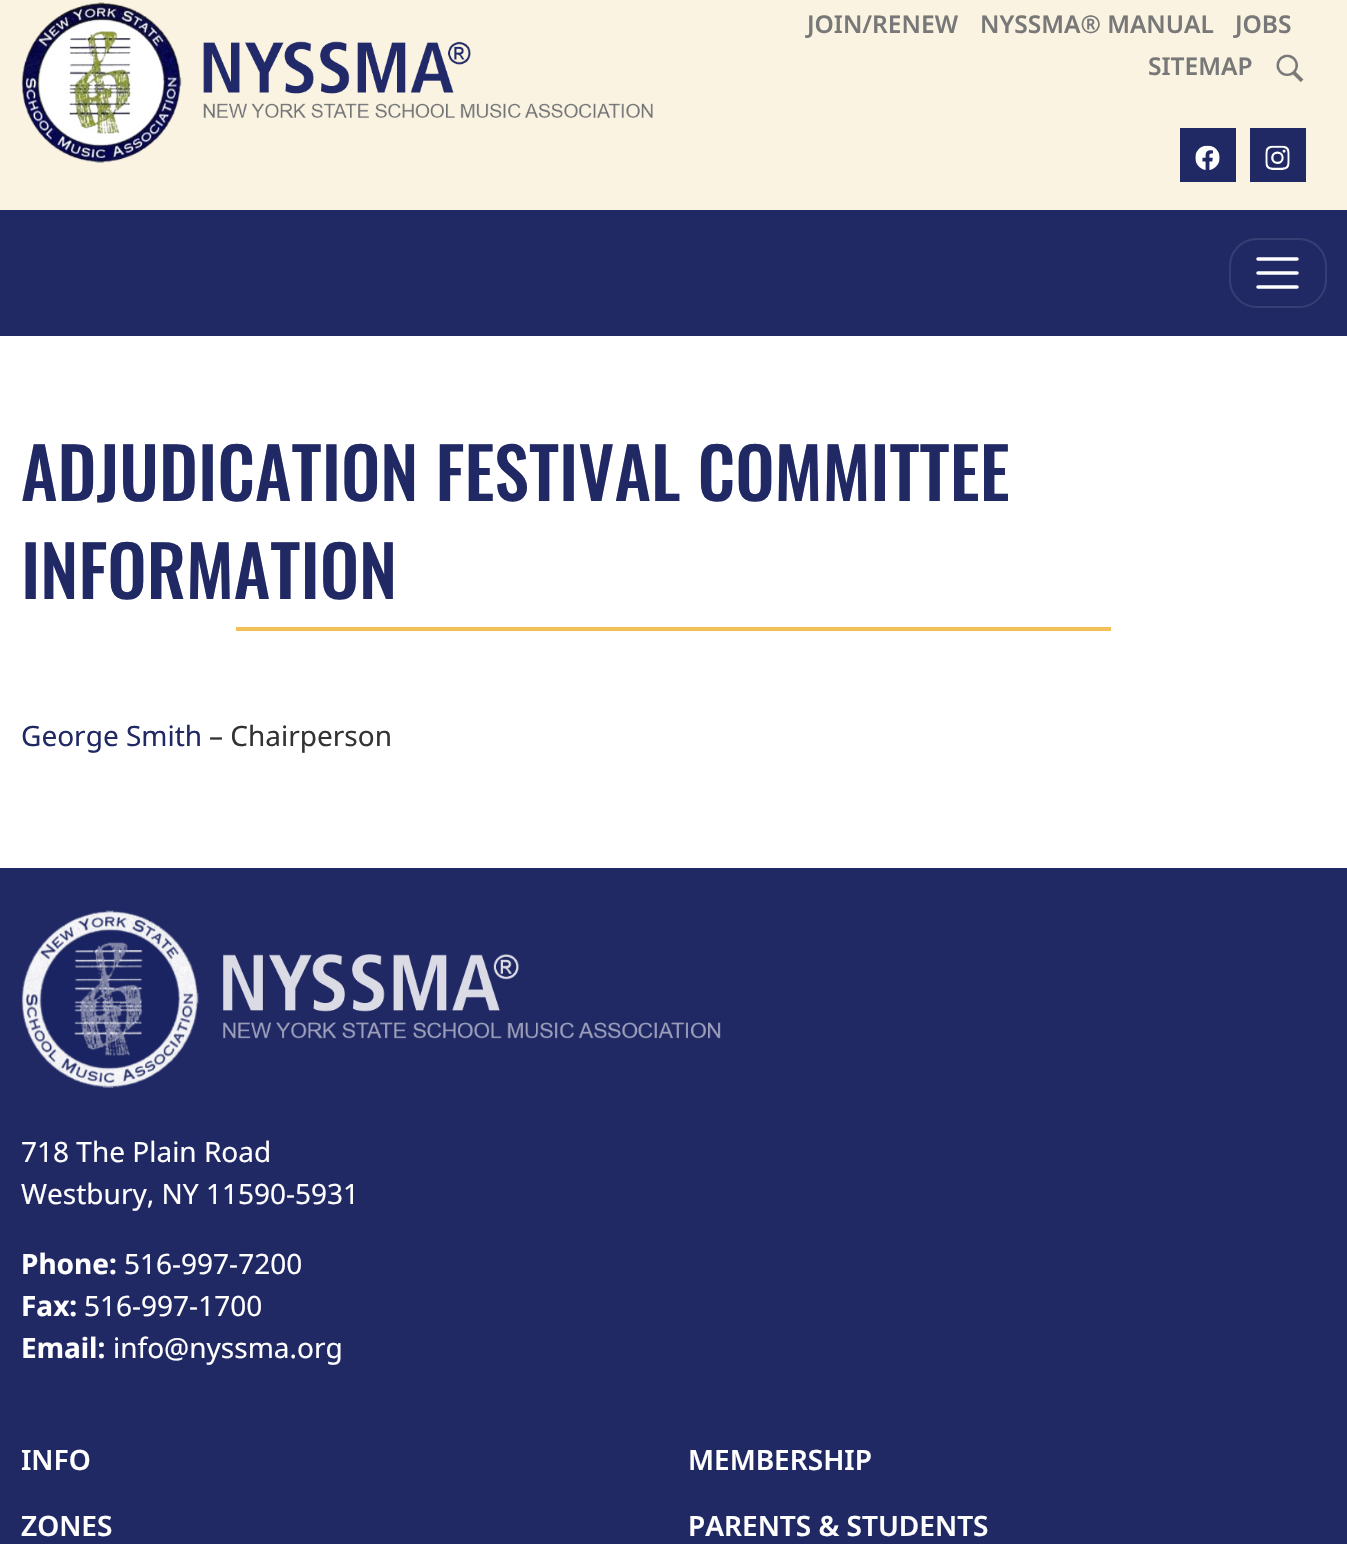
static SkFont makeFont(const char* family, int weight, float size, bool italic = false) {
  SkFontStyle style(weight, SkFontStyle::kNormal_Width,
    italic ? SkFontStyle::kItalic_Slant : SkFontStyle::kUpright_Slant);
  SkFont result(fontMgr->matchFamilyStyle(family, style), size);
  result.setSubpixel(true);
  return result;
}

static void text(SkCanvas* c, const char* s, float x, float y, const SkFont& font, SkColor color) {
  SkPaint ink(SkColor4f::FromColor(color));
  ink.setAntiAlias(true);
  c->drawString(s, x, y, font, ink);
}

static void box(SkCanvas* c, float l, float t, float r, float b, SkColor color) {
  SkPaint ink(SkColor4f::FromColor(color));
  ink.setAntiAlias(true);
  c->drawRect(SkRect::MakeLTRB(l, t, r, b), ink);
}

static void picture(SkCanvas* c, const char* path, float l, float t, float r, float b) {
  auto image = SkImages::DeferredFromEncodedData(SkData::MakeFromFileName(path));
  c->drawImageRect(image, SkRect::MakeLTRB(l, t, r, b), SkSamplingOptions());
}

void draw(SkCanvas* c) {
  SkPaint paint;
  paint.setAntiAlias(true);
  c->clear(0xffffffff);
  box(c, 0, 0, 1347, 210, 0xfffaf3e1);
  picture(c, "img_01.png", 21, 2, 653, 163);
  SkFont face1 = makeFont("Noto Sans", 600, 24.5f);
  text(c, "JOIN/RENEW", 807, 33, face1, 0xff787878);
  text(c, "NYSSMA® MANUAL", 980, 33, face1, 0xff787878);
  text(c, "JOBS", 1235, 33, face1, 0xff787878);
  text(c, "SITEMAP", 1148, 75, face1, 0xff787878);
  picture(c, "img_02.png", 1276, 54, 1304, 83);
  box(c, 1180, 128, 1236, 182, 0xff212965);
  picture(c, "img_03.png", 1195, 145, 1220, 170);
  box(c, 1250, 128, 1306, 182, 0xff212965);
  picture(c, "img_04.png", 1265, 145, 1290, 170);
  box(c, 0, 210, 1347, 336, 0xff212965);
  paint.setStyle(SkPaint::kStroke_Style);
  paint.setStrokeWidth(2);
  paint.setColor(0xff373e74);
  c->drawRoundRect(SkRect::MakeLTRB(1230, 239, 1326, 307), 27, 27, paint);
  paint.setStrokeWidth(3.5f);
  paint.setStrokeCap(SkPaint::kRound_Cap);
  paint.setColor(0xffffffff);
  c->drawPath(SkPathBuilder().moveTo(1258, 259).lineTo(1297, 259).moveTo(1258, 273).lineTo(1297, 273).moveTo(1258, 287).lineTo(1297, 287).detach(), paint);
  SkFont face2 = makeFont("Oswald", 500, 70);
  text(c, "ADJUDICATION FESTIVAL COMMITTEE", 21, 501, face2, 0xff212965);
  text(c, "INFORMATION", 21, 599, face2, 0xff212965);
  box(c, 236, 627, 1111, 631, 0xfff2c056);
  SkFont face3 = makeFont("Noto Sans", 400, 28);
  text(c, "George Smith", 21, 746, face3, 0xff212965);
  text(c, "– Chairperson", 209, 746, face3, 0xff333333);
  box(c, 0, 868, 1347, 1544, 0xff212965);
  picture(c, "img_05.png", 21, 910, 721, 1088);
  text(c, "718 The Plain Road", 21, 1162, face3, 0xffffffff);
  text(c, "Westbury, NY 11590-5931", 21, 1204, face3, 0xffffffff);
  SkFont face4 = makeFont("Noto Sans", 700, 28);
  text(c, "Phone:", 21, 1274, face4, 0xffffffff);
  text(c, "516-997-7200", 124, 1274, face3, 0xffffffff);
  text(c, "Fax:", 21, 1316, face4, 0xffffffff);
  text(c, "516-997-1700", 84, 1316, face3, 0xffffffff);
  text(c, "Email:", 21, 1358, face4, 0xffffffff);
  text(c, "info@nyssma.org", 113, 1358, face3, 0xffffffff);
  SkFont face5 = makeFont("Noto Sans", 600, 28);
  text(c, "INFO", 21, 1470, face5, 0xffffffff);
  text(c, "MEMBERSHIP", 688, 1470, face5, 0xffffffff);
  text(c, "ZONES", 21, 1536, face5, 0xffffffff);
  text(c, "PARENTS & STUDENTS", 688, 1536, face5, 0xffffffff);
}
